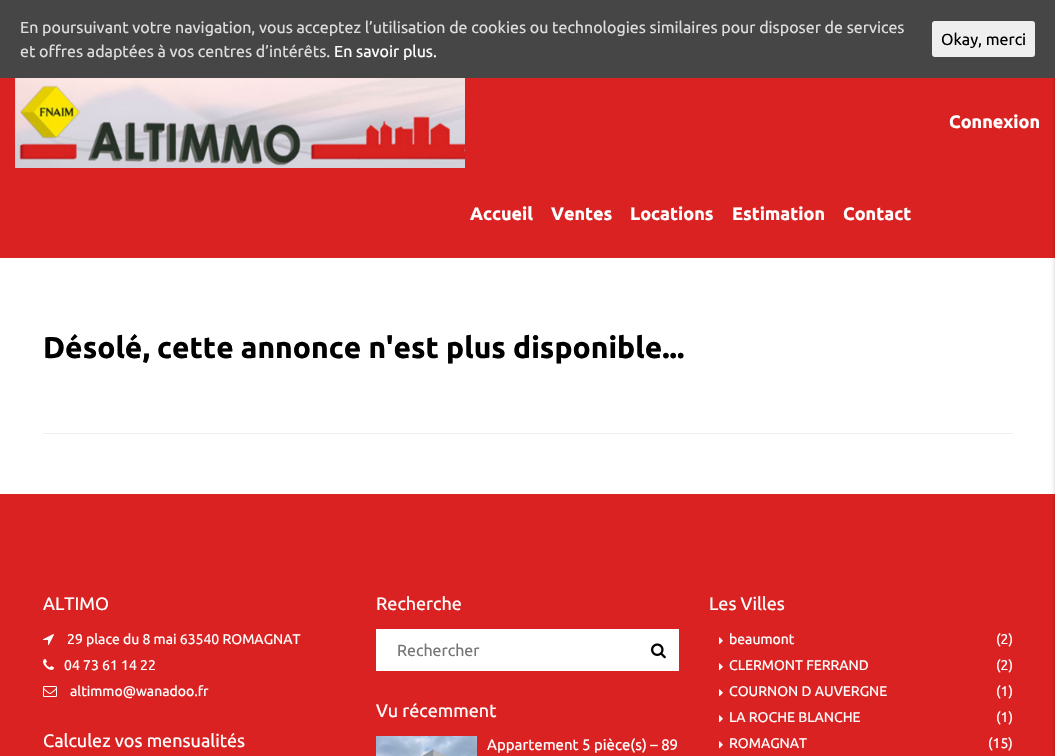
static SkFont makeFont(const char* family, int weight, float size, bool italic = false) {
  SkFontStyle style(weight, SkFontStyle::kNormal_Width,
    italic ? SkFontStyle::kItalic_Slant : SkFontStyle::kUpright_Slant);
  SkFont result(fontMgr->matchFamilyStyle(family, style), size);
  result.setSubpixel(true);
  return result;
}

static void text(SkCanvas* c, const char* s, float x, float y, const SkFont& font, SkColor color) {
  SkPaint ink(SkColor4f::FromColor(color));
  ink.setAntiAlias(true);
  c->drawString(s, x, y, font, ink);
}

static void box(SkCanvas* c, float l, float t, float r, float b, SkColor color) {
  SkPaint ink(SkColor4f::FromColor(color));
  ink.setAntiAlias(true);
  c->drawRect(SkRect::MakeLTRB(l, t, r, b), ink);
}

static void roundBox(SkCanvas* c, float l, float t, float r, float b, float radius, SkColor color) {
  SkPaint ink(SkColor4f::FromColor(color));
  ink.setAntiAlias(true);
  c->drawRoundRect(SkRect::MakeLTRB(l, t, r, b), radius, radius, ink);
}

static void picture(SkCanvas* c, const char* path, float l, float t, float r, float b) {
  auto image = SkImages::DeferredFromEncodedData(SkData::MakeFromFileName(path));
  c->drawImageRect(image, SkRect::MakeLTRB(l, t, r, b), SkSamplingOptions());
}

void draw(SkCanvas* c) {
  SkPaint paint;
  paint.setAntiAlias(true);
  c->clear(0xffffffff);
  box(c, 0, 78, 1055, 258, 0xffd92221);
  box(c, 0, 494, 1055, 756, 0xffd92221);
  paint.setColor(0x33000000);
  paint.setMaskFilter(SkMaskFilter::MakeBlur(kNormal_SkBlurStyle, 2));
  c->drawRect(SkRect::MakeLTRB(1055, 2, 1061, 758), paint);
  paint.setMaskFilter(nullptr);
  box(c, 0, 0, 1055, 78, 0xff464646);
  SkFont face1 = makeFont("Ubuntu", 400, 16);
  text(c, "En poursuivant votre navigation, vous acceptez l’utilisation de cookies ou technologies similaires pour disposer de services", 20, 33, face1, 0xffdddddd);
  text(c, "et offres adaptées à vos centres d’intérêts.", 20, 57, face1, 0xffdddddd);
  text(c, "En savoir plus.", 334, 57, face1, 0xffffffff);
  roundBox(c, 932, 21, 1035, 57, 3, 0xffefefef);
  text(c, "Okay, merci", 941, 45, face1, 0xff000000);
  SkFont face2 = makeFont("Ubuntu", 700, 18);
  text(c, "Connexion", 949, 128, face2, 0xffffffff);
  picture(c, "img_01.png", 15, 78, 465, 168);
  text(c, "Accueil", 470, 220, face2, 0xffffffff);
  text(c, "Ventes", 551, 220, face2, 0xffffffff);
  text(c, "Locations", 630, 220, face2, 0xffffffff);
  text(c, "Estimation", 732, 220, face2, 0xffffffff);
  text(c, "Contact", 843, 220, face2, 0xffffffff);
  box(c, 43, 433, 1013, 434, 0xffeeeeee);
  SkFont face3 = makeFont("Ubuntu", 700, 30);
  text(c, "Désolé, cette annonce n'est plus disponible...", 43, 358, face3, 0xff000000);
  SkFont face4 = makeFont("Ubuntu", 400, 18);
  text(c, "ALTIMO", 43, 610, face4, 0xffffffff);
  picture(c, "img_02.png", 43, 634, 54, 645);
  SkFont face5 = makeFont("Ubuntu", 400, 14);
  text(c, "29 place du 8 mai 63540 ROMAGNAT", 67, 644, face5, 0xffffffff);
  picture(c, "img_03.png", 43, 659, 54, 670);
  text(c, "04 73 61 14 22", 64, 670, face5, 0xffffffff);
  picture(c, "img_04.png", 43, 686, 57, 697);
  text(c, "altimmo@wanadoo.fr", 70, 696, face5, 0xffffffff);
  text(c, "Calculez vos mensualités", 43, 747, face4, 0xffffffff);
  text(c, "Recherche", 376, 610, face4, 0xffffffff);
  box(c, 376, 629, 679, 671, 0xffffffff);
  text(c, "Rechercher", 397, 656, face1, 0xff757575);
  picture(c, "img_05.png", 651, 643, 666, 659);
  text(c, "Vu récemment", 376, 717, face4, 0xffffffff);
  picture(c, "img_06.png", 376, 736, 477, 756);
  SkFont face6 = makeFont("Ubuntu", 400, 15);
  text(c, "Appartement 5 pièce(s) – 89", 487, 750, face6, 0xffffffff);
  text(c, "Les Villes", 709, 610, face4, 0xffffffff);
  picture(c, "img_07.png", 719, 637, 723, 645);
  text(c, "beaumont", 729, 644, face5, 0xffffffff);
  text(c, "(2)", 996, 644, face5, 0xffffffff);
  picture(c, "img_07.png", 719, 663, 723, 671);
  text(c, "CLERMONT FERRAND", 729, 670, face5, 0xffffffff);
  text(c, "(2)", 996, 670, face5, 0xffffffff);
  picture(c, "img_07.png", 719, 689, 723, 697);
  text(c, "COURNON D AUVERGNE", 729, 696, face5, 0xffffffff);
  text(c, "(1)", 996, 696, face5, 0xffffffff);
  picture(c, "img_07.png", 719, 715, 723, 723);
  text(c, "LA ROCHE BLANCHE", 729, 722, face5, 0xffffffff);
  text(c, "(1)", 996, 722, face5, 0xffffffff);
  picture(c, "img_07.png", 719, 741, 723, 749);
  text(c, "ROMAGNAT", 729, 748, face5, 0xffffffff);
  text(c, "(15)", 988, 748, face5, 0xffffffff);
}
